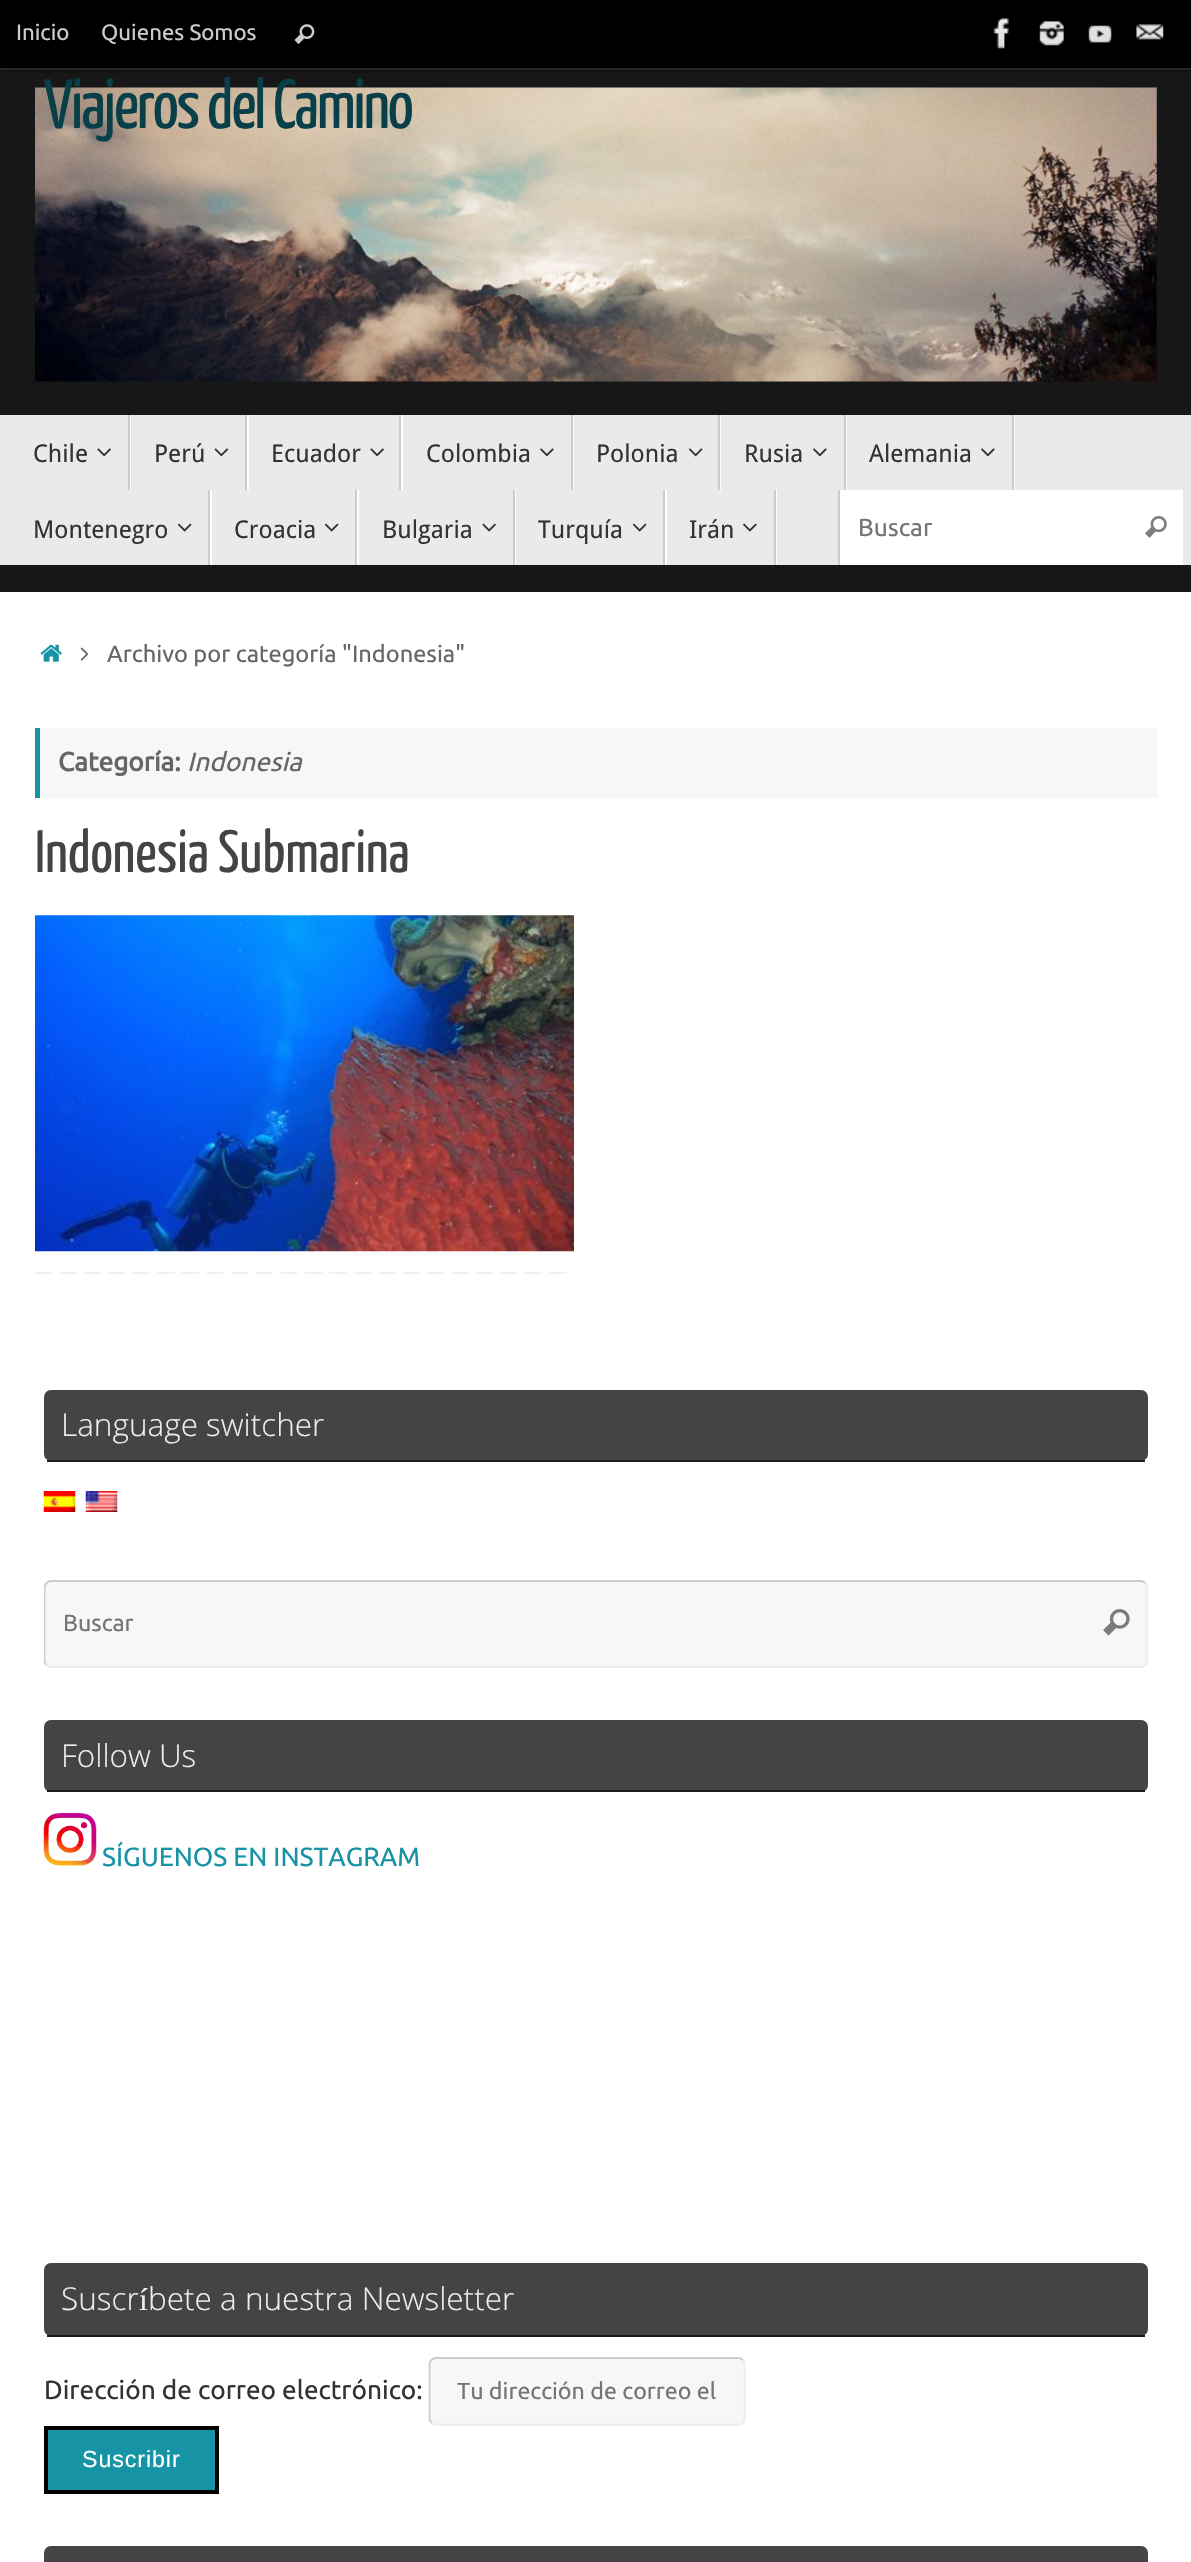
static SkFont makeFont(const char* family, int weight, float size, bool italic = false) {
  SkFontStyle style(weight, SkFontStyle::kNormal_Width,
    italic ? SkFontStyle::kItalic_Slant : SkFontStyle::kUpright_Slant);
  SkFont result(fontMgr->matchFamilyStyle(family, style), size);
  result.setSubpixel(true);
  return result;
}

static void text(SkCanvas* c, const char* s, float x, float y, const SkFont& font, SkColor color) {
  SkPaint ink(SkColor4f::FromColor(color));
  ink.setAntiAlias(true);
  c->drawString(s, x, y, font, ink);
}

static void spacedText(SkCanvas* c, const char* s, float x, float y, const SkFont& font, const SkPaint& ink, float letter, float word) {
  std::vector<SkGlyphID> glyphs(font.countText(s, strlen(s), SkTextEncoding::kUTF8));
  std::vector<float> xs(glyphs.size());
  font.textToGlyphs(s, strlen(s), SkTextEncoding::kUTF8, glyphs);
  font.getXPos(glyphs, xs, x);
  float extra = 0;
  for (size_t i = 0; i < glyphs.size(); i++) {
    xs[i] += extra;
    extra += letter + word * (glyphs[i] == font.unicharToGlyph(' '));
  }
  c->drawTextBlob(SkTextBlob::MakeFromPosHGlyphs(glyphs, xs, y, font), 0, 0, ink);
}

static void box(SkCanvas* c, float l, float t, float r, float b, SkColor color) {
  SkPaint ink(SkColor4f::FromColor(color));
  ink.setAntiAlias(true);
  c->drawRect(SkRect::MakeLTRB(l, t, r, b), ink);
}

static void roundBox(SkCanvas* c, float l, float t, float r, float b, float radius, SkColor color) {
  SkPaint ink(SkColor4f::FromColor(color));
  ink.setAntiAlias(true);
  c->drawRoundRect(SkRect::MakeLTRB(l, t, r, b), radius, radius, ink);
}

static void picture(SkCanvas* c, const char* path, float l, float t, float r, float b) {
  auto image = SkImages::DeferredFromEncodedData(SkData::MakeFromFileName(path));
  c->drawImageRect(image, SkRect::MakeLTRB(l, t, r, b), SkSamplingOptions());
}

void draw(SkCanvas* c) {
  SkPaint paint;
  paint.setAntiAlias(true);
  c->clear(0xff171717);
  paint.setColor(0xff000000);
  paint.setMaskFilter(SkMaskFilter::MakeBlur(kNormal_SkBlurStyle, 2.5f));
  c->drawRect(SkRect::MakeLTRB(5, 0, 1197, 70), paint);
  paint.setMaskFilter(nullptr);
  box(c, 0, 0, 1191, 68, 0xff000000);
  box(c, 0, 68, 1191, 70, 0xff282828);
  SkFont face1 = makeFont("Ubuntu", 400, 22.25f);
  text(c, "Inicio", 16, 40, face1, 0xffcccccc);
  text(c, "Quienes Somos", 101, 40, face1, 0xffcccccc);
  picture(c, "img_01.png", 294, 24, 315, 45);
  picture(c, "img_02.png", 993, 18, 1009, 49);
  picture(c, "img_03.png", 1039, 21, 1064, 46);
  picture(c, "img_04.png", 1088, 25, 1112, 43);
  picture(c, "img_05.png", 1136, 24, 1164, 40);
  picture(c, "img_06.png", 35, 87, 1157, 382);
  SkFont face2 = makeFont("Yanone Kaffeesatz", 400, 69.25f);
  paint.setColor(0xff093f48);
  spacedText(c, "Viajeros del Camino", 44, 128, face2, paint, -2.1f, 0);
  box(c, 0, 415, 1191, 565, 0xffeaeaea);
  box(c, 130, 415, 131, 490, 0xffffffff);
  box(c, 128, 415, 130, 490, 0xffcccccc);
  SkFont face3 = makeFont("Droid Sans", 400, 24.5f);
  text(c, "Chile", 33, 462, face3, 0xff333333);
  picture(c, "img_07.png", 97, 448, 111, 457);
  box(c, 247, 415, 249, 490, 0xffffffff);
  box(c, 245, 415, 247, 490, 0xffcccccc);
  text(c, "Perú", 154, 462, face3, 0xff333333);
  picture(c, "img_08.png", 214, 448, 229, 457);
  box(c, 401, 415, 403, 490, 0xffffffff);
  box(c, 399, 415, 401, 490, 0xffcccccc);
  text(c, "Ecuador", 271, 462, face3, 0xff333333);
  picture(c, "img_07.png", 370, 448, 384, 457);
  box(c, 573, 415, 574, 490, 0xffffffff);
  box(c, 571, 415, 573, 490, 0xffcccccc);
  text(c, "Colombia", 426, 462, face3, 0xff333333);
  picture(c, "img_09.png", 540, 448, 554, 457);
  box(c, 720, 415, 721, 490, 0xffffffff);
  box(c, 718, 415, 720, 490, 0xffcccccc);
  text(c, "Polonia", 596, 462, face3, 0xff333333);
  picture(c, "img_10.png", 688, 448, 703, 457);
  box(c, 846, 415, 847, 490, 0xffffffff);
  box(c, 844, 415, 846, 490, 0xffcccccc);
  text(c, "Rusia", 744, 462, face3, 0xff333333);
  picture(c, "img_09.png", 813, 448, 827, 457);
  box(c, 1014, 415, 1015, 490, 0xffffffff);
  box(c, 1012, 415, 1014, 490, 0xffcccccc);
  text(c, "Alemania", 869, 462, face3, 0xff333333);
  picture(c, "img_09.png", 981, 448, 995, 457);
  box(c, 210, 490, 212, 565, 0xffffffff);
  box(c, 208, 490, 210, 565, 0xffcccccc);
  text(c, "Montenegro", 33, 538, face3, 0xff333333);
  picture(c, "img_11.png", 177, 523, 192, 532);
  box(c, 357, 490, 359, 565, 0xffffffff);
  box(c, 355, 490, 357, 565, 0xffcccccc);
  text(c, "Croacia", 234, 538, face3, 0xff333333);
  picture(c, "img_11.png", 324, 523, 339, 532);
  box(c, 515, 490, 516, 565, 0xffffffff);
  box(c, 513, 490, 515, 565, 0xffcccccc);
  text(c, "Bulgaria", 382, 538, face3, 0xff333333);
  picture(c, "img_12.png", 482, 523, 496, 532);
  box(c, 665, 490, 667, 565, 0xffffffff);
  box(c, 663, 490, 665, 565, 0xffcccccc);
  text(c, "Turquía", 538, 538, face3, 0xff333333);
  picture(c, "img_11.png", 632, 523, 647, 532);
  box(c, 776, 490, 777, 565, 0xffffffff);
  box(c, 774, 490, 776, 565, 0xffcccccc);
  text(c, "Irán", 689, 538, face3, 0xff333333);
  picture(c, "img_13.png", 743, 523, 757, 532);
  box(c, 840, 490, 1183, 565, 0xffffffff);
  box(c, 838, 490, 840, 565, 0xffcccccc);
  SkFont face4 = makeFont("Ubuntu", 400, 24.5f);
  text(c, "Buscar", 858, 536, face4, 0xff757575);
  picture(c, "img_14.png", 1145, 516, 1167, 538);
  box(c, 0, 592, 1191, 2562, 0xffffffff);
  picture(c, "img_15.png", 40, 644, 62, 662);
  picture(c, "img_16.png", 80, 647, 89, 661);
  SkFont face5 = makeFont("Ubuntu", 400, 23.6f);
  text(c, "Archivo por categoría \"Indonesia\"", 107, 662, face5, 0xff666666);
  box(c, 40, 728, 1157, 798, 0xfff7f7f7);
  box(c, 35, 728, 40, 798, 0xff1693a5);
  SkFont face6 = makeFont("Ubuntu", 700, 26.25f);
  text(c, "Categoría:", 58, 771, face6, 0xff666666);
  SkFont face7 = makeFont("Ubuntu", 400, 26.25f, true);
  text(c, "Indonesia", 187, 771, face7, 0xff666666);
  SkFont face8 = makeFont("Yanone Kaffeesatz", 400, 59.5f);
  text(c, "Indonesia Submarina", 35, 872, face8, 0xff444444);
  picture(c, "img_17.png", 35, 915, 574, 1252);
  picture(c, "img_18.png", 35, 1272, 567, 1274);
  roundBox(c, 44, 1390, 1148, 1461, 7, 0xff444444);
  box(c, 47, 1460, 1145, 1462, 0xff1c1c1c);
  SkFont face9 = makeFont("Open Sans", 300, 31.5f);
  text(c, "Language switcher", 61, 1436, face9, 0xffeeeeee);
  picture(c, "img_19.png", 43, 1491, 76, 1512);
  picture(c, "img_20.png", 85, 1491, 118, 1512);
  roundBox(c, 44, 1580, 1148, 1668, 7, 0xfff7f7f7);
  paint.setStyle(SkPaint::kStroke_Style);
  paint.setStrokeWidth(1.8f);
  paint.setColor(0xffeeeeee);
  c->drawPath(SkPathBuilder().moveTo(1145.5f, 1583).cubicTo(1146.5f, 1584, 1147, 1585.5f, 1147, 1587).lineTo(1147, 1661).cubicTo(1147, 1662.5f, 1146.5f, 1664, 1145.5f, 1665).cubicTo(1144, 1666, 1142.5f, 1667, 1141, 1667).lineTo(51, 1667).cubicTo(49, 1667, 47.5f, 1666, 46.5f, 1665).detach(), paint);
  c->save();
  c->clipRect(SkRect::MakeLTRB(44, 1580, 1148, 1668));
  paint.setColor(0xffcccccc);
  c->drawPath(SkPathBuilder().moveTo(46.5f, 1665).cubicTo(45.5f, 1664, 44.5f, 1662.5f, 44.5f, 1661).lineTo(44.5f, 1587).cubicTo(44.5f, 1585.5f, 45.5f, 1584, 46.5f, 1583).cubicTo(47.5f, 1582, 49, 1581, 51, 1581).lineTo(1141, 1581).cubicTo(1142.5f, 1581, 1144, 1582, 1145.5f, 1583).detach(), paint);
  c->restore();
  SkFont face10 = makeFont("Ubuntu", 400, 23.25f);
  text(c, "Buscar", 63, 1631, face10, 0xff757575);
  picture(c, "img_21.png", 1103, 1609, 1130, 1636);
  roundBox(c, 44, 1720, 1148, 1792, 7, 0xff444444);
  box(c, 47, 1790, 1145, 1792, 0xff1c1c1c);
  text(c, "Follow Us", 61, 1767, face9, 0xffeeeeee);
  picture(c, "img_22.png", 43, 1813, 97, 1866);
  SkFont face11 = makeFont("Ubuntu", 400, 26.25f);
  text(c, "SÍGUENOS EN INSTAGRAM", 102, 1866, face11, 0xff1693a5);
  roundBox(c, 44, 2263, 1148, 2336, 7, 0xff444444);
  box(c, 47, 2335, 1145, 2337, 0xff1c1c1c);
  text(c, "Suscr", 61, 2310, face9, 0xffeeeeee);
  SkFont face12 = makeFont("Liberation Serif", 400, 31.5f);
  text(c, "í", 139, 2310, face12, 0xffeeeeee);
  text(c, "bete a nuestra Newsletter", 148, 2310, face9, 0xffeeeeee);
  text(c, "Dirección de correo electrónico:", 44, 2399, face11, 0xff333333);
  roundBox(c, 429, 2357, 746, 2426, 7, 0xfff7f7f7);
  paint.setColor(0xffeeeeee);
  c->drawPath(SkPathBuilder().moveTo(743, 2360).cubicTo(744, 2361, 744.5f, 2362.5f, 744.5f, 2364).lineTo(744.5f, 2418.5f).cubicTo(744.5f, 2420, 744, 2421.5f, 743, 2423).cubicTo(741.5f, 2424, 740, 2424.5f, 738.5f, 2424.5f).lineTo(436, 2424.5f).cubicTo(434, 2424.5f, 432.5f, 2424, 431.5f, 2423).detach(), paint);
  paint.setColor(0xffcccccc);
  c->drawPath(SkPathBuilder().moveTo(431.5f, 2423).cubicTo(430.5f, 2421.5f, 429.5f, 2420, 429.5f, 2418.5f).lineTo(429.5f, 2364).cubicTo(429.5f, 2362.5f, 430.5f, 2361, 431.5f, 2360).cubicTo(432.5f, 2359, 434, 2358, 436, 2358).lineTo(738.5f, 2358).cubicTo(740, 2358, 741.5f, 2359, 743, 2360).detach(), paint);
  text(c, "Tu dirección de correo el", 457, 2399, face10, 0xff757575);
  paint.setStyle(SkPaint::kFill_Style);
  paint.setColor(0xff1693a5);
  c->drawRect(SkRect::MakeLTRB(46, 2428, 217, 2492), paint);
  paint.setStyle(SkPaint::kStroke_Style);
  paint.setStrokeWidth(4);
  paint.setColor(0xff000000);
  c->drawRect(SkRect::MakeLTRB(46, 2428, 217, 2492), paint);
  SkFont face13 = makeFont("Liberation Sans", 400, 23.25f);
  paint.setStyle(SkPaint::kFill_Style);
  paint.setColor(0xffffffff);
  spacedText(c, "Suscribir", 82, 2467, face13, paint, 0.9f, 0);
  roundBox(c, 44, 2546, 1148, 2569, 7, 0xff444444);
}
